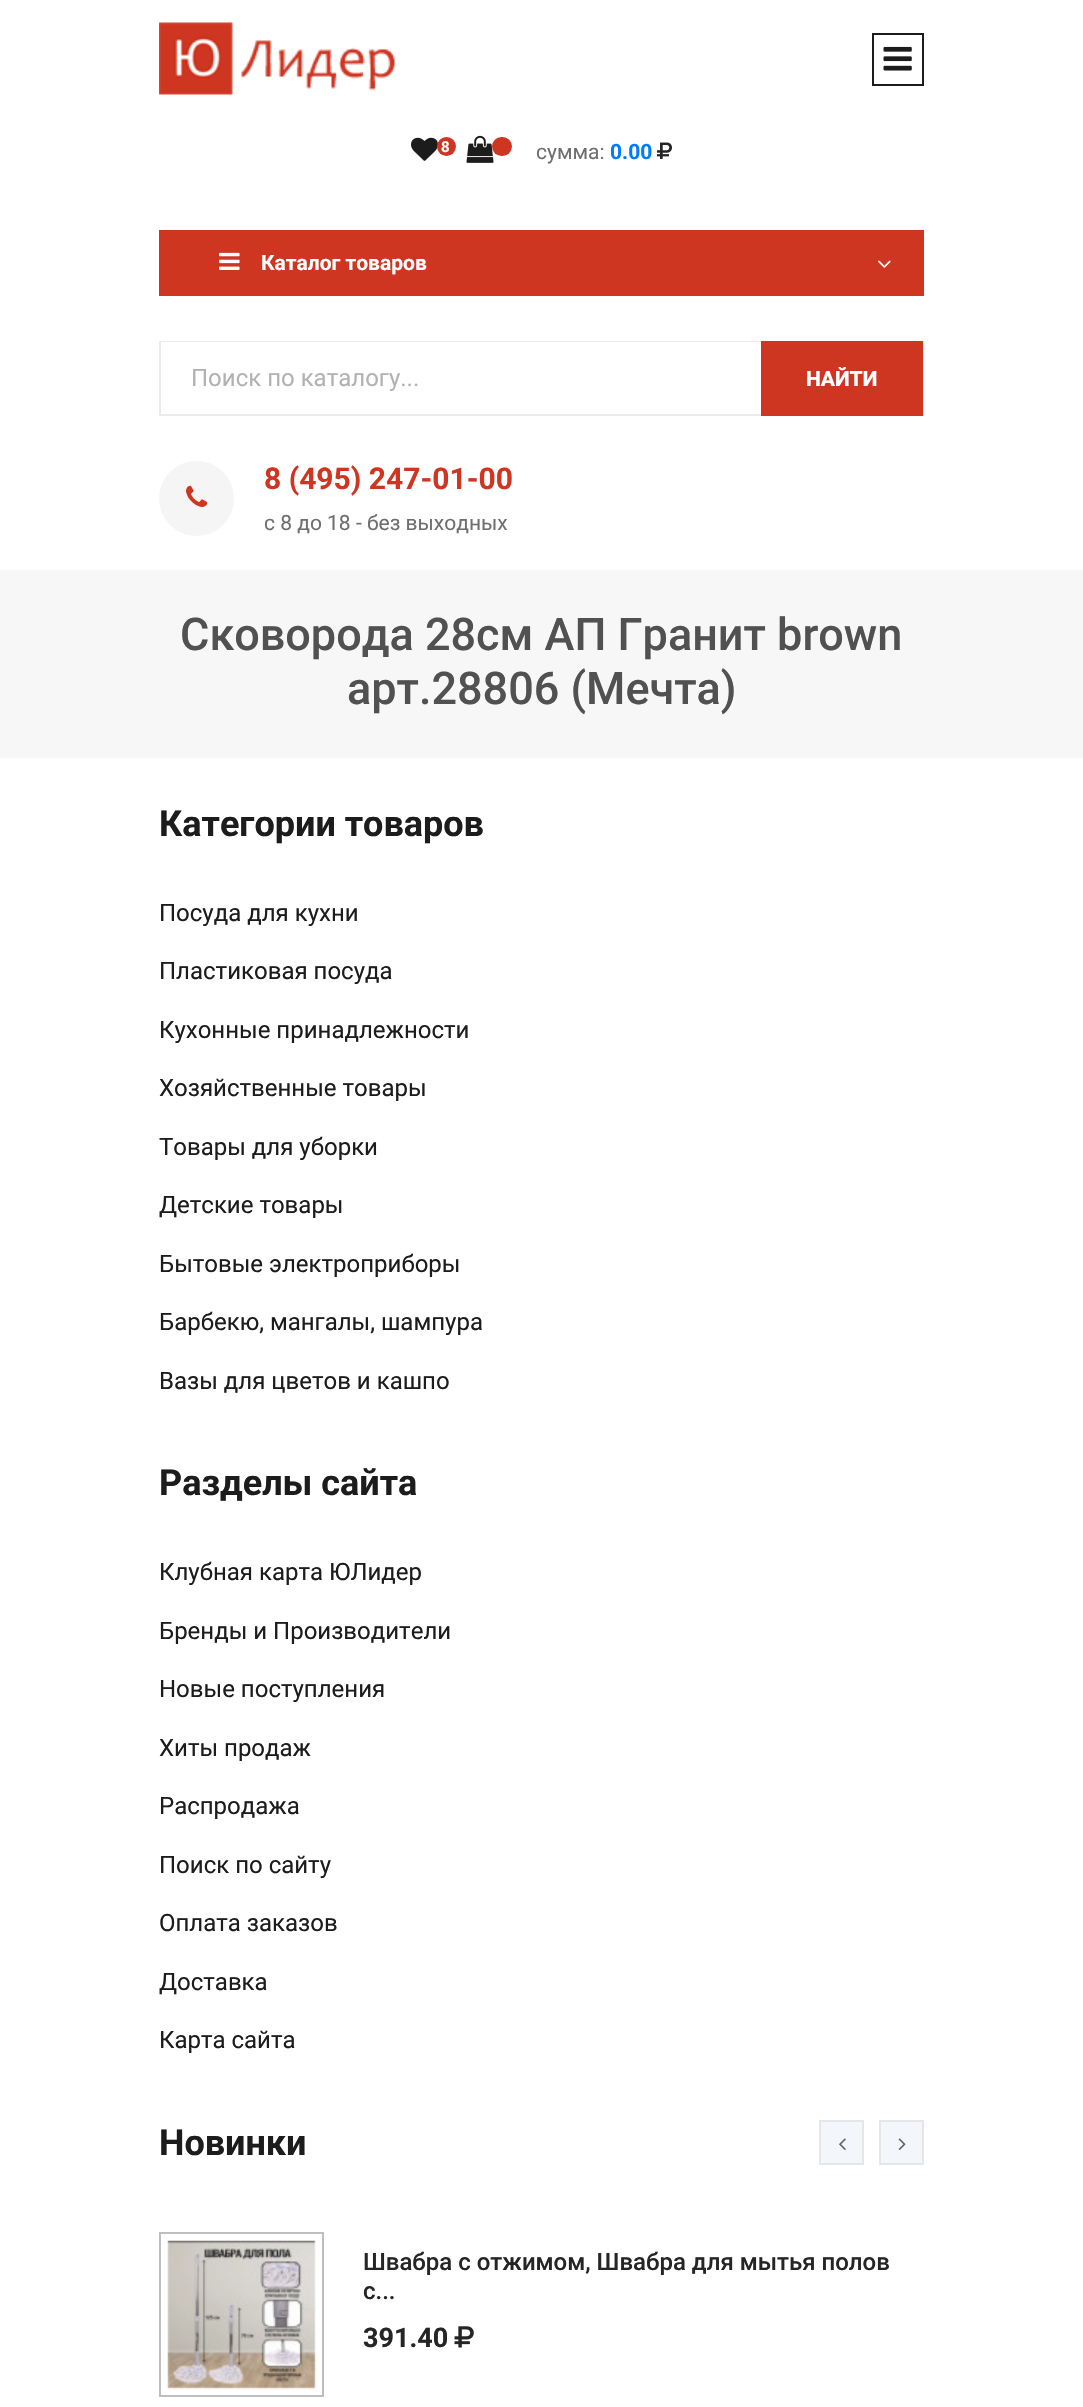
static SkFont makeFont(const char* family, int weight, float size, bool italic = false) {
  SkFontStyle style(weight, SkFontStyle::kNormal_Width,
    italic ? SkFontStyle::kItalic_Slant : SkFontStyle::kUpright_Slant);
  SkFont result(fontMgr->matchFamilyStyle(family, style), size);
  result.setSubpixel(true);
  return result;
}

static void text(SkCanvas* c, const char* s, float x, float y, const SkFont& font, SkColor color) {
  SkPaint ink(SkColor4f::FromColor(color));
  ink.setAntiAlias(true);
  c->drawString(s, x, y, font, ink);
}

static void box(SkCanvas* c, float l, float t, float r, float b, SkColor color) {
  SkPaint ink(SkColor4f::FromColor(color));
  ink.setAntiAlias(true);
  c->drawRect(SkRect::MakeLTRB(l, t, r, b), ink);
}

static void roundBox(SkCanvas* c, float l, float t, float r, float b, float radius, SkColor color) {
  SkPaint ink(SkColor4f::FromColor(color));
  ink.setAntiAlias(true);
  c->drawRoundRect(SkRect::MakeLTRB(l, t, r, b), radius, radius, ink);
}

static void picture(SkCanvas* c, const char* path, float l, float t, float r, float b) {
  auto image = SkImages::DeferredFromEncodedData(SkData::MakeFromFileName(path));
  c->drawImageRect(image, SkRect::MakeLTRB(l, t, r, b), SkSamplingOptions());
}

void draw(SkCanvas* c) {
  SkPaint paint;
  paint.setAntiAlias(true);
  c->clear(0xffffffff);
  paint.setStyle(SkPaint::kStroke_Style);
  paint.setStrokeWidth(2);
  paint.setColor(0xff1c1c1c);
  c->drawRect(SkRect::MakeLTRB(873, 34, 923, 85), paint);
  picture(c, "img_01.png", 883, 46, 912, 71);
  picture(c, "img_02.png", 159, 22, 395, 95);
  picture(c, "img_03.png", 411, 137, 438, 161);
  paint.setStyle(SkPaint::kFill_Style);
  paint.setColor(0xffce3622);
  c->drawCircle(446.5f, 146.5f, 9.5f, paint);
  SkFont face1 = makeFont("Roboto", 700, 15);
  text(c, "8", 441, 152, face1, 0xffffffff);
  picture(c, "img_04.png", 466, 135, 494, 163);
  roundBox(c, 492, 137, 512, 156, 9.5f, 0xffce3622);
  SkFont face2 = makeFont("Roboto", 400, 21);
  text(c, "сумма:", 536, 159, face2, 0xff6f6f6f);
  SkFont face3 = makeFont("Roboto", 700, 21);
  text(c, "0.00", 610, 159, face3, 0xff007bff);
  picture(c, "img_05.png", 657, 142, 672, 159);
  box(c, 159, 230, 924, 296, 0xffce3622);
  picture(c, "img_06.png", 219, 252, 240, 270);
  text(c, "Каталог товаров", 261, 270, face3, 0xffffffff);
  picture(c, "img_07.png", 878, 260, 891, 268);
  paint.setStyle(SkPaint::kStroke_Style);
  paint.setColor(0xffebebeb);
  c->drawRect(SkRect::MakeLTRB(160, 342, 923, 415), paint);
  box(c, 161, 342, 761, 343, 0xffffffff);
  SkFont face4 = makeFont("Roboto", 400, 24);
  text(c, "Поиск по каталогу...", 191, 386, face4, 0xffb2b2b2);
  box(c, 761, 341, 923, 416, 0xffce3622);
  SkFont face5 = makeFont("Roboto", 800, 21);
  text(c, "НАЙТИ", 806, 386, face5, 0xffffffff);
  paint.setStyle(SkPaint::kFill_Style);
  paint.setColor(0xfff5f5f5);
  c->drawCircle(196.5f, 498.5f, 37.5f, paint);
  picture(c, "img_08.png", 186, 485, 208, 507);
  SkFont face6 = makeFont("Roboto", 700, 30);
  text(c, "8 (495) 247-01-00", 264, 489, face6, 0xffce3622);
  text(c, "с 8 до 18 - без выходных", 264, 530, face2, 0xff6f6f6f);
  box(c, 0, 570, 1083, 758, 0xfff7f7f7);
  SkFont face7 = makeFont("Roboto", 500, 45);
  text(c, "Сковорода 28см АП Гранит brown", 180, 650, face7, 0xff515151);
  text(c, "арт.28806 (Мечта)", 347, 704, face7, 0xff515151);
  SkFont face8 = makeFont("Roboto", 700, 36);
  text(c, "Категории товаров", 159, 836, face8, 0xff1c1c1c);
  text(c, "Посуда для кухни", 159, 921, face4, 0xff1c1c1c);
  text(c, "Пластиковая посуда", 159, 979, face4, 0xff1c1c1c);
  text(c, "Кухонные принадлежности", 159, 1038, face4, 0xff1c1c1c);
  text(c, "Хозяйственные товары", 159, 1096, face4, 0xff1c1c1c);
  text(c, "Товары для уборки", 159, 1155, face4, 0xff1c1c1c);
  text(c, "Детские товары", 159, 1213, face4, 0xff1c1c1c);
  text(c, "Бытовые электроприборы", 159, 1272, face4, 0xff1c1c1c);
  text(c, "Барбекю, мангалы, шампура", 159, 1330, face4, 0xff1c1c1c);
  text(c, "Вазы для цветов и кашпо", 159, 1389, face4, 0xff1c1c1c);
  text(c, "Разделы сайта", 159, 1495, face8, 0xff1c1c1c);
  text(c, "Клубная карта ЮЛидер", 159, 1580, face4, 0xff1c1c1c);
  text(c, "Бренды и Производители", 159, 1639, face4, 0xff1c1c1c);
  text(c, "Новые поступления", 159, 1697, face4, 0xff1c1c1c);
  text(c, "Хиты продаж", 159, 1756, face4, 0xff1c1c1c);
  text(c, "Распродажа", 159, 1814, face4, 0xff1c1c1c);
  text(c, "Поиск по сайту", 159, 1873, face4, 0xff1c1c1c);
  text(c, "Оплата заказов", 159, 1931, face4, 0xff1c1c1c);
  text(c, "Доставка", 159, 1990, face4, 0xff1c1c1c);
  text(c, "Карта сайта", 159, 2048, face4, 0xff1c1c1c);
  text(c, "Новинки", 159, 2155, face8, 0xff1c1c1c);
  paint.setColor(0xfff3f6fa);
  c->drawRect(SkRect::MakeLTRB(820, 2121, 863, 2164), paint);
  paint.setStyle(SkPaint::kStroke_Style);
  paint.setColor(0xffe6e6e6);
  c->drawRect(SkRect::MakeLTRB(820, 2121, 863, 2164), paint);
  picture(c, "img_09.png", 839, 2138, 846, 2150);
  paint.setStyle(SkPaint::kFill_Style);
  paint.setColor(0xfff3f6fa);
  c->drawRect(SkRect::MakeLTRB(880, 2121, 923, 2164), paint);
  paint.setStyle(SkPaint::kStroke_Style);
  paint.setColor(0xffe6e6e6);
  c->drawRect(SkRect::MakeLTRB(880, 2121, 923, 2164), paint);
  picture(c, "img_10.png", 898, 2138, 906, 2150);
  paint.setColor(0xffbebebe);
  c->drawRect(SkRect::MakeLTRB(160, 2233, 323, 2396), paint);
  picture(c, "img_11.png", 167, 2240, 317, 2390);
  SkFont face9 = makeFont("Roboto", 500, 24);
  text(c, "Швабра с отжимом, Швабра для мытья полов", 363, 2270, face9, 0xff252525);
  text(c, "с...", 363, 2299, face9, 0xff252525);
  SkFont face10 = makeFont("Roboto", 700, 27);
  text(c, "391.40", 363, 2347, face10, 0xff252525);
  picture(c, "img_12.png", 454, 2326, 474, 2348);
}
